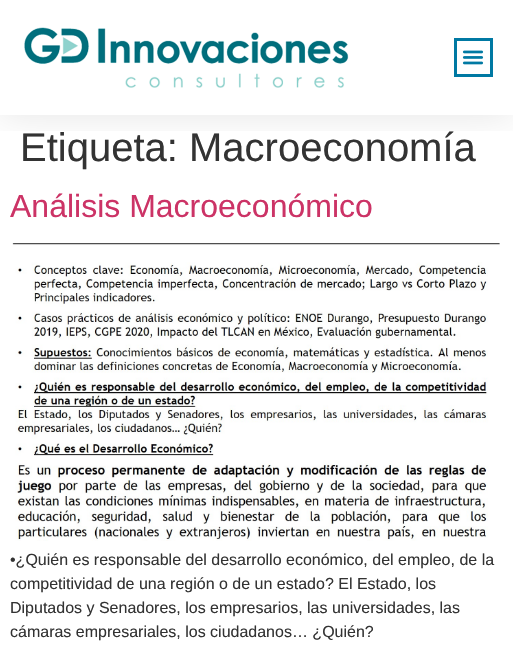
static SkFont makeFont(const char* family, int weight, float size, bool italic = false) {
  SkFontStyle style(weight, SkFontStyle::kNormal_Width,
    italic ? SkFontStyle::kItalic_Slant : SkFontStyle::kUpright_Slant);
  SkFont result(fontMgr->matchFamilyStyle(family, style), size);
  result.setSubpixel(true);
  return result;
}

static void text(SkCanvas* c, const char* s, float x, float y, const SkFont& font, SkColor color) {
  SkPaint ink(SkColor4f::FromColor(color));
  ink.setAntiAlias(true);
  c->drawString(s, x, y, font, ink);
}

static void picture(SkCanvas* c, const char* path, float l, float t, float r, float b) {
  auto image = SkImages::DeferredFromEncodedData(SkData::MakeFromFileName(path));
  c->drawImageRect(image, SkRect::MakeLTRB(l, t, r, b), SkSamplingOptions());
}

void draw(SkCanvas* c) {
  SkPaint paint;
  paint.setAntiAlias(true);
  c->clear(0xffffffff);
  c->save();
  c->clipRect(SkRect::MakeLTRB(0, 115, 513, 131));
  paint.setColor(0x1a000000);
  paint.setMaskFilter(SkMaskFilter::MakeBlur(kNormal_SkBlurStyle, 19));
  c->drawRect(SkRect::MakeLTRB(0, 0, 513, 115), paint);
  paint.setMaskFilter(nullptr);
  c->restore();
  picture(c, "img_01.png", 24, 27, 349, 88);
  paint.setStyle(SkPaint::kStroke_Style);
  paint.setStrokeWidth(3);
  paint.setColor(0xff0079a3);
  c->drawRect(SkRect::MakeLTRB(455.5f, 39.5f, 491.5f, 75.5f), paint);
  picture(c, "img_02.png", 462, 50, 484, 65);
  SkFont face1 = makeFont("Liberation Sans", 400, 40);
  text(c, "Etiqueta: Macroeconomía", 20, 161, face1, 0xff333333);
  SkFont face2 = makeFont("Liberation Sans", 400, 32);
  text(c, "Análisis Macroeconómico", 10, 217, face2, 0xffcc3366);
  picture(c, "img_03.png", 12, 243, 500, 541);
  SkFont face3 = makeFont("Liberation Sans", 400, 16);
  text(c, "•¿Quién es responsable del desarrollo económico, del empleo, de la", 10, 565, face3, 0xff333333);
  text(c, "competitividad de una región o de un estado? El Estado, los", 10, 589, face3, 0xff333333);
  text(c, "Diputados y Senadores, los empresarios, las universidades, las", 10, 613, face3, 0xff333333);
  text(c, "cámaras empresariales, los ciudadanos… ¿Quién?", 10, 637, face3, 0xff333333);
}
